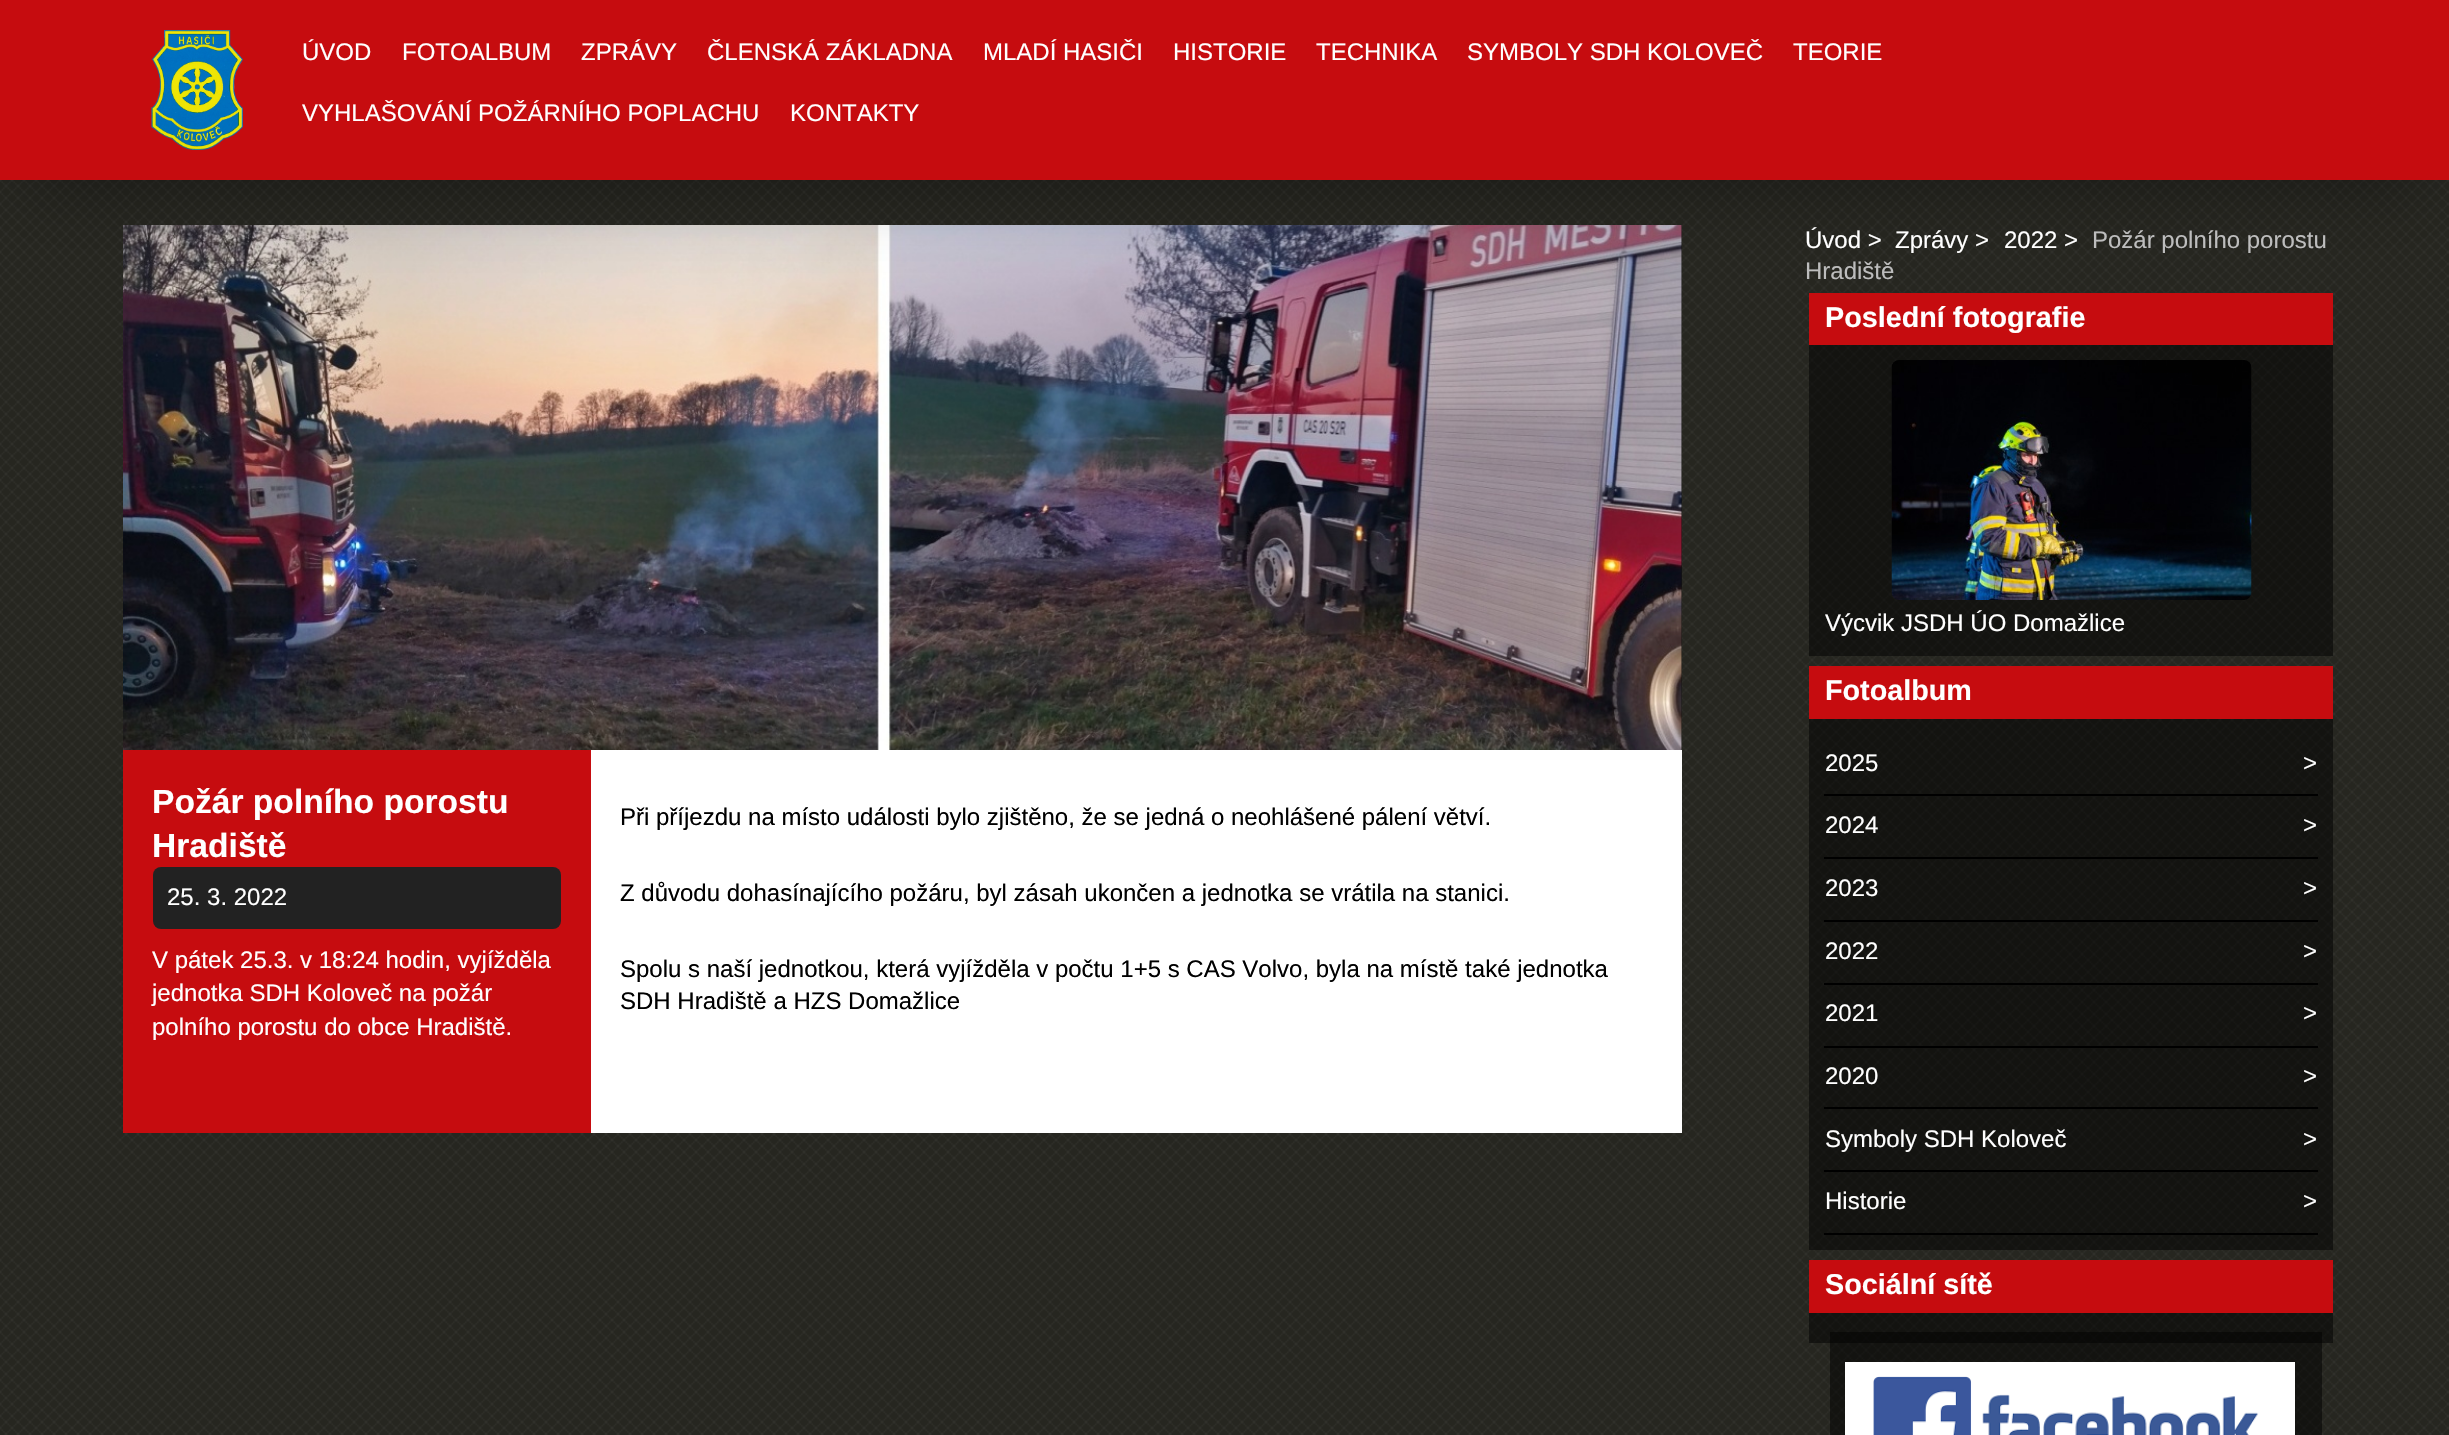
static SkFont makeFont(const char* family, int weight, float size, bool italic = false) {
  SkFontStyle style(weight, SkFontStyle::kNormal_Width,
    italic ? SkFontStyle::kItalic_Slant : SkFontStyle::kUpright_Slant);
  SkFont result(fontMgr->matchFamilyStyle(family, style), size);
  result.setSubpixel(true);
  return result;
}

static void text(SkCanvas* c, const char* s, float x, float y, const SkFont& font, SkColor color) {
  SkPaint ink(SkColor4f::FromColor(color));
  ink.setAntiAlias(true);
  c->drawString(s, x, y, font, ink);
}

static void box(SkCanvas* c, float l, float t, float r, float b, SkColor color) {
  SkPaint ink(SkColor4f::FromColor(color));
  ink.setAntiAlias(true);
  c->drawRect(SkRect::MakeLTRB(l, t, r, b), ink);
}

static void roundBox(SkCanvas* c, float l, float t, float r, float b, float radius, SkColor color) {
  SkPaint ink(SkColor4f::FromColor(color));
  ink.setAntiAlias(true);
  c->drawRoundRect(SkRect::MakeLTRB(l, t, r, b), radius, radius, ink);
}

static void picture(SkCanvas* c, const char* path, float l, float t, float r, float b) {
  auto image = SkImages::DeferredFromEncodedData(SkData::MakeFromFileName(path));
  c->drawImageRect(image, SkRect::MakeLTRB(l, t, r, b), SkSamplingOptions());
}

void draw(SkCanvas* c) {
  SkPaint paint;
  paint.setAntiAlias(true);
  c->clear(0xff25251f);
  picture(c, "img_01.png", 0, 180, 2449, 1435);
  box(c, 1681, 225, 1682, 750, 0x80000000);
  picture(c, "img_03.png", 123, 225, 1682, 750);
  box(c, 1809, 293, 2333, 345, 0xffc60c0f);
  paint.setColor(0x73000000);
  paint.setMaskFilter(SkMaskFilter::MakeBlur(kNormal_SkBlurStyle, 40.5f));
  c->drawRect(SkRect::MakeLTRB(27, 50, 2423, 176), paint);
  paint.setMaskFilter(nullptr);
  box(c, 0, 0, 2449, 180, 0xffc60c0f);
  picture(c, "img_02.png", 151, 30, 243, 150);
  SkFont face1 = makeFont("Liberation Sans", 400, 24);
  text(c, "ÚVOD", 302, 60, face1, 0xffffffff);
  text(c, "FOTOALBUM", 402, 60, face1, 0xffffffff);
  text(c, "ZPRÁVY", 581, 60, face1, 0xffffffff);
  text(c, "ČLENSKÁ ZÁKLADNA", 707, 60, face1, 0xffffffff);
  text(c, "MLADÍ HASIČI", 983, 60, face1, 0xffffffff);
  text(c, "HISTORIE", 1173, 60, face1, 0xffffffff);
  text(c, "TECHNIKA", 1316, 60, face1, 0xffffffff);
  text(c, "SYMBOLY SDH KOLOVEČ", 1467, 60, face1, 0xffffffff);
  text(c, "TEORIE", 1793, 60, face1, 0xffffffff);
  text(c, "VYHLAŠOVÁNÍ POŽÁRNÍHO POPLACHU", 302, 121, face1, 0xffffffff);
  text(c, "KONTAKTY", 790, 121, face1, 0xffffffff);
  box(c, 123, 750, 591, 1133, 0xffc60c0f);
  SkFont face2 = makeFont("Liberation Sans", 700, 33.6f);
  text(c, "Požár polního porostu", 152, 813, face2, 0xffffffff);
  text(c, "Hradiště", 152, 857, face2, 0xffffffff);
  roundBox(c, 153, 867, 561, 929, 8, 0xff222222);
  text(c, "25. 3. 2022", 167, 905, face1, 0xffffffff);
  text(c, "V pátek 25.3. v 18:24 hodin, vyjížděla", 152, 968, face1, 0xffffffff);
  text(c, "jednotka SDH Koloveč na požár", 152, 1001, face1, 0xffffffff);
  text(c, "polního porostu do obce Hradiště.", 152, 1035, face1, 0xffffffff);
  box(c, 591, 750, 1682, 1133, 0xffffffff);
  text(c, "Při příjezdu na místo události bylo zjištěno, že se jedná o neohlášené pálení větví.", 620, 825, face1, 0xff000000);
  text(c, "Z důvodu dohasínajícího požáru, byl zásah ukončen a jednotka se vrátila na stanici.", 620, 901, face1, 0xff000000);
  text(c, "Spolu s naší jednotkou, která vyjížděla v počtu 1+5 s CAS Volvo, byla na místě také jednotka", 620, 977, face1, 0xff000000);
  text(c, "SDH Hradiště a HZS Domažlice", 620, 1009, face1, 0xff000000);
  text(c, "Úvod >", 1805, 248, face1, 0xffffffff);
  text(c, "Zprávy >", 1895, 248, face1, 0xffffffff);
  text(c, "2022 >", 2004, 248, face1, 0xffffffff);
  text(c, "Požár polního porostu", 2092, 248, face1, 0xffbdbdbd);
  text(c, "Hradiště", 1805, 279, face1, 0xffbdbdbd);
  SkFont face3 = makeFont("Liberation Sans", 700, 28.75f);
  text(c, "Poslední fotografie", 1825, 327, face3, 0xffffffff);
  box(c, 1809, 345, 2333, 656, 0x80000000);
  picture(c, "img_04.png", 1891, 360, 2252, 600);
  text(c, "Výcvik JSDH ÚO Domažlice", 1825, 631, face1, 0xffffffff);
  box(c, 1809, 666, 2333, 719, 0xffc60c0f);
  text(c, "Fotoalbum", 1825, 700, face3, 0xffffffff);
  box(c, 1809, 719, 2333, 1250, 0x80000000);
  box(c, 1824, 794, 2318, 796, 0xff000000);
  text(c, "2025", 1825, 771, face1, 0xffffffff);
  text(c, ">", 2303, 771, face1, 0xffffffff);
  box(c, 1824, 857, 2318, 859, 0xff000000);
  text(c, "2024", 1825, 833, face1, 0xffffffff);
  text(c, ">", 2303, 833, face1, 0xffffffff);
  box(c, 1824, 920, 2318, 922, 0xff000000);
  text(c, "2023", 1825, 896, face1, 0xffffffff);
  text(c, ">", 2303, 896, face1, 0xffffffff);
  box(c, 1824, 983, 2318, 985, 0xff000000);
  text(c, "2022", 1825, 959, face1, 0xffffffff);
  text(c, ">", 2303, 959, face1, 0xffffffff);
  box(c, 1824, 1046, 2318, 1048, 0xff000000);
  text(c, "2021", 1825, 1021, face1, 0xffffffff);
  text(c, ">", 2303, 1021, face1, 0xffffffff);
  box(c, 1824, 1107, 2318, 1109, 0xff000000);
  text(c, "2020", 1825, 1084, face1, 0xffffffff);
  text(c, ">", 2303, 1084, face1, 0xffffffff);
  box(c, 1824, 1170, 2318, 1172, 0xff000000);
  text(c, "Symboly SDH Koloveč", 1825, 1147, face1, 0xffffffff);
  text(c, ">", 2303, 1147, face1, 0xffffffff);
  box(c, 1824, 1233, 2318, 1235, 0xff000000);
  text(c, "Historie", 1825, 1209, face1, 0xffffffff);
  text(c, ">", 2303, 1209, face1, 0xffffffff);
  box(c, 1809, 1260, 2333, 1313, 0xffc60c0f);
  text(c, "Sociální sítě", 1825, 1294, face3, 0xffffffff);
  box(c, 1809, 1313, 2333, 1343, 0x80000000);
  box(c, 1830, 1332, 2322, 1435, 0x80000000);
  picture(c, "img_05.png", 1845, 1362, 2295, 1435);
}
